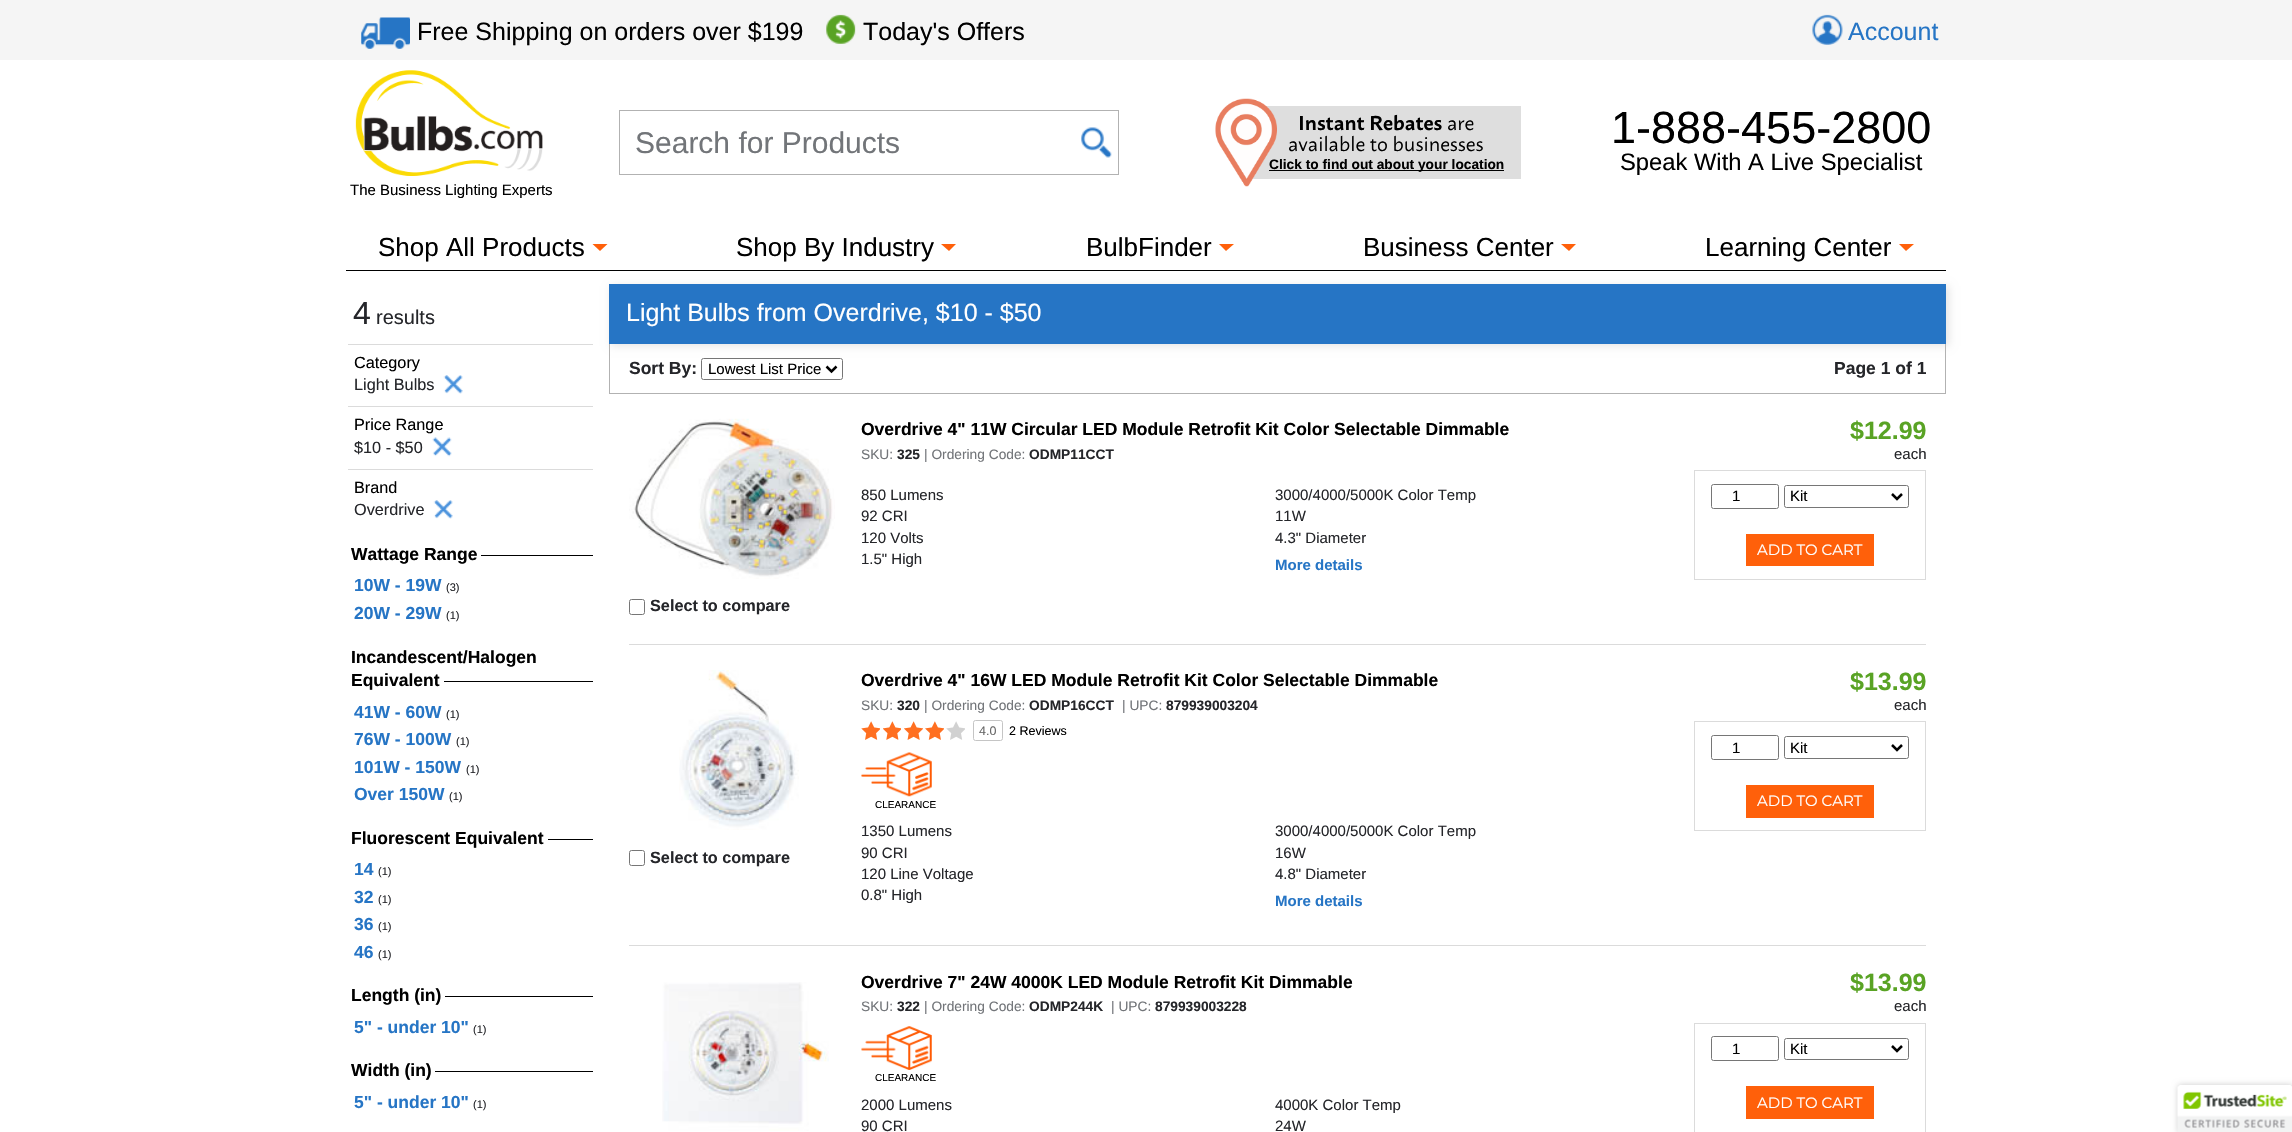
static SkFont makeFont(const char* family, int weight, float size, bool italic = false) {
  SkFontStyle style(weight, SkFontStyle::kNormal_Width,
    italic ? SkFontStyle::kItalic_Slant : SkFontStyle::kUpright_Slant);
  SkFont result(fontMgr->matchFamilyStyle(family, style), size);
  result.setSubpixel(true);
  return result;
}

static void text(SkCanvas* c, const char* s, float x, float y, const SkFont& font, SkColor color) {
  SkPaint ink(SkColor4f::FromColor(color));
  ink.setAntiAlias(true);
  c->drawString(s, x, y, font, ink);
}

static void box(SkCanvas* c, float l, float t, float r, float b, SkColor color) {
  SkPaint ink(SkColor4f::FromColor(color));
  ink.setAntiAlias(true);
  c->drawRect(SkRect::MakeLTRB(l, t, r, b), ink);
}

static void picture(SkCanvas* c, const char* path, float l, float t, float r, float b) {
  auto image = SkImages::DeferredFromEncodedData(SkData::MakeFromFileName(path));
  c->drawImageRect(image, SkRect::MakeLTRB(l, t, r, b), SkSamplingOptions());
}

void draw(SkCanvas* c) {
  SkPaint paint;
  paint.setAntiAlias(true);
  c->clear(0xffffffff);
  box(c, 0, 0, 2292, 60, 0xfff5f5f5);
  picture(c, "img_01.png", 361, 17, 410, 49);
  SkFont face1 = makeFont("Liberation Sans", 400, 25);
  text(c, "Free Shipping on orders over $199", 417, 40, face1, 0xff000000);
  picture(c, "img_02.png", 826, 14, 856, 44);
  text(c, "Today's Offers", 863, 40, face1, 0xff000000);
  picture(c, "img_03.png", 1812, 14, 1843, 45);
  text(c, "Account", 1848, 40, face1, 0xff2675c5);
  paint.setStyle(SkPaint::kStroke_Style);
  paint.setStrokeWidth(1);
  paint.setColor(0xffb2b2b2);
  c->drawRect(SkRect::MakeLTRB(619.5f, 110.5f, 1118.5f, 174.5f), paint);
  SkFont face2 = makeFont("Liberation Sans", 400, 30);
  text(c, "Search for Products", 635, 153, face2, 0xff727579);
  picture(c, "img_04.png", 1081, 127, 1112, 158);
  box(c, 1252, 106, 1521, 179, 0xffdedede);
  box(c, 1269, 170, 1504, 171, 0xff000000);
  SkFont face3 = makeFont("Liberation Sans", 700, 13.75f);
  text(c, "Click to find out about your location", 1269, 169, face3, 0xff000000);
  picture(c, "img_05.png", 1215, 98, 1277, 187);
  SkFont face4 = makeFont("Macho", 600, 20);
  text(c, "Instant Rebates", 1298, 130, face4, 0xff000000);
  SkFont face5 = makeFont("Macho", 400, 20);
  text(c, "are", 1447, 130, face5, 0xff000000);
  text(c, "available to businesses", 1288, 151, face5, 0xff000000);
  SkFont face6 = makeFont("Liberation Sans", 400, 45);
  text(c, "1-888-455-2800", 1611, 143, face6, 0xff000000);
  SkFont face7 = makeFont("Liberation Sans", 400, 23.75f);
  text(c, "Speak With A Live Specialist", 1620, 170, face7, 0xff000000);
  picture(c, "img_06.png", 355, 70, 543, 176);
  SkFont face8 = makeFont("Liberation Sans", 400, 15);
  text(c, "The Business Lighting Experts", 350, 195, face8, 0xff000000);
  box(c, 346, 270, 1946, 271, 0xff000000);
  SkFont face9 = makeFont("Liberation Sans", 400, 26);
  text(c, "Shop All Products", 378, 256, face9, 0xff000000);
  paint.setStyle(SkPaint::kFill_Style);
  paint.setColor(0xffff600a);
  c->drawPath(SkPathBuilder().moveTo(592.5f, 244).lineTo(607.5f, 244).lineTo(600, 251).close().detach(), paint);
  text(c, "Shop By Industry", 736, 256, face9, 0xff000000);
  c->drawPath(SkPathBuilder().moveTo(941, 244).lineTo(956, 244).lineTo(949, 251).close().detach(), paint);
  text(c, "BulbFinder", 1086, 256, face9, 0xff000000);
  c->drawPath(SkPathBuilder().moveTo(1219, 244).lineTo(1234, 244).lineTo(1226, 251).close().detach(), paint);
  text(c, "Business Center", 1363, 256, face9, 0xff000000);
  c->drawPath(SkPathBuilder().moveTo(1561, 244).lineTo(1576, 244).lineTo(1569, 251).close().detach(), paint);
  text(c, "Learning Center", 1705, 256, face9, 0xff000000);
  c->drawPath(SkPathBuilder().moveTo(1899, 244).lineTo(1914, 244).lineTo(1906, 251).close().detach(), paint);
  SkFont face10 = makeFont("Liberation Sans", 400, 32);
  text(c, "4", 353, 324, face10, 0xff25262a);
  SkFont face11 = makeFont("Liberation Sans", 400, 20);
  text(c, "results", 376, 324, face11, 0xff25262a);
  box(c, 348, 344, 593, 345, 0xffdbdbdb);
  SkFont face12 = makeFont("Liberation Sans", 400, 16.25f);
  text(c, "Category", 354, 368, face12, 0xff000000);
  text(c, "Light Bulbs", 354, 390, face12, 0xff25262a);
  picture(c, "img_07.png", 443, 375, 463, 394);
  box(c, 348, 406, 593, 407, 0xffdbdbdb);
  text(c, "Price Range", 354, 430, face12, 0xff000000);
  text(c, "$10 - $50", 354, 453, face12, 0xff25262a);
  picture(c, "img_08.png", 432, 437, 452, 457);
  box(c, 348, 469, 593, 470, 0xffdbdbdb);
  text(c, "Brand", 354, 493, face12, 0xff000000);
  text(c, "Overdrive", 354, 515, face12, 0xff25262a);
  picture(c, "img_07.png", 433, 500, 453, 519);
  box(c, 481, 555, 593, 556, 0xff000000);
  SkFont face13 = makeFont("Liberation Sans", 700, 17.5f);
  text(c, "Wattage Range", 351, 560, face13, 0xff000000);
  text(c, "10W - 19W", 354, 591, face13, 0xff2675c5);
  SkFont face14 = makeFont("Liberation Sans", 400, 11);
  text(c, "(3)", 446, 591, face14, 0xff25262a);
  text(c, "20W - 29W", 354, 619, face13, 0xff2675c5);
  text(c, "(1)", 446, 619, face14, 0xff25262a);
  box(c, 444, 681, 593, 682, 0xff000000);
  text(c, "Incandescent/Halogen", 351, 663, face13, 0xff000000);
  text(c, "Equivalent", 351, 686, face13, 0xff000000);
  text(c, "41W - 60W", 354, 718, face13, 0xff2675c5);
  text(c, "(1)", 446, 718, face14, 0xff25262a);
  text(c, "76W - 100W", 354, 745, face13, 0xff2675c5);
  text(c, "(1)", 456, 745, face14, 0xff25262a);
  text(c, "101W - 150W", 354, 773, face13, 0xff2675c5);
  text(c, "(1)", 466, 773, face14, 0xff25262a);
  text(c, "Over 150W", 354, 800, face13, 0xff2675c5);
  text(c, "(1)", 449, 800, face14, 0xff25262a);
  box(c, 548, 839, 593, 840, 0xff000000);
  text(c, "Fluorescent Equivalent", 351, 844, face13, 0xff000000);
  text(c, "14", 354, 875, face13, 0xff2675c5);
  text(c, "(1)", 378, 875, face14, 0xff25262a);
  text(c, "32", 354, 903, face13, 0xff2675c5);
  text(c, "(1)", 378, 903, face14, 0xff25262a);
  text(c, "36", 354, 930, face13, 0xff2675c5);
  text(c, "(1)", 378, 930, face14, 0xff25262a);
  text(c, "46", 354, 958, face13, 0xff2675c5);
  text(c, "(1)", 378, 958, face14, 0xff25262a);
  box(c, 445, 996, 593, 997, 0xff000000);
  text(c, "Length (in)", 351, 1001, face13, 0xff000000);
  text(c, "5\" - under 10\"", 354, 1033, face13, 0xff2675c5);
  text(c, "(1)", 473, 1033, face14, 0xff25262a);
  box(c, 435, 1071, 593, 1072, 0xff000000);
  text(c, "Width (in)", 351, 1076, face13, 0xff000000);
  text(c, "5\" - under 10\"", 354, 1108, face13, 0xff2675c5);
  text(c, "(1)", 473, 1108, face14, 0xff25262a);
  paint.setColor(0x1a000000);
  paint.setMaskFilter(SkMaskFilter::MakeBlur(kNormal_SkBlurStyle, 4));
  c->drawRect(SkRect::MakeLTRB(611, 286, 1949, 346), paint);
  paint.setMaskFilter(nullptr);
  box(c, 609, 284, 1946, 344, 0xff2675c5);
  text(c, "Light Bulbs from Overdrive, $10 - $50", 626, 321, face1, 0xffffffff);
  box(c, 1945, 344, 1946, 394, 0xffb2b2b2);
  box(c, 609, 393, 1946, 394, 0xffb2b2b2);
  box(c, 609, 344, 610, 394, 0xffb2b2b2);
  text(c, "Sort By:", 629, 374, face13, 0xff25262a);
  paint.setStyle(SkPaint::kStroke_Style);
  paint.setColor(0xff767676);
  c->drawRoundRect(SkRect::MakeLTRB(701.5f, 358.5f, 842.5f, 379.5f), 2, 2, paint);
  paint.setStrokeWidth(2.5f);
  paint.setColor(0xff000000);
  c->drawPath(SkPathBuilder().moveTo(826.5f, 366.5f).lineTo(831.5f, 371.5f).lineTo(836.5f, 366.5f).detach(), paint);
  text(c, "Lowest List Price", 708, 374, face8, 0xff000000);
  text(c, "Page 1 of 1", 1834, 374, face13, 0xff25262a);
  box(c, 629, 644, 1926, 645, 0xffdbdbdb);
  text(c, "Overdrive 4\" 11W Circular LED Module Retrofit Kit Color Selectable Dimmable", 861, 435, face13, 0xff000000);
  SkFont face15 = makeFont("Liberation Sans", 400, 13.75f);
  text(c, "SKU:", 861, 459, face15, 0xff727579);
  text(c, "325", 897, 459, face3, 0xff25262a);
  text(c, "| Ordering Code:", 924, 459, face15, 0xff727579);
  text(c, "ODMP11CCT", 1029, 459, face3, 0xff25262a);
  text(c, "850 Lumens", 861, 500, face8, 0xff25262a);
  text(c, "3000/4000/5000K Color Temp", 1275, 500, face8, 0xff25262a);
  text(c, "92 CRI", 861, 521, face8, 0xff25262a);
  text(c, "11W", 1275, 521, face8, 0xff25262a);
  text(c, "120 Volts", 861, 543, face8, 0xff25262a);
  text(c, "4.3\" Diameter", 1275, 543, face8, 0xff25262a);
  text(c, "1.5\" High", 861, 564, face8, 0xff25262a);
  SkFont face16 = makeFont("Liberation Sans", 700, 15);
  text(c, "More details", 1275, 570, face16, 0xff2675c5);
  SkFont face17 = makeFont("Liberation Sans", 700, 25);
  text(c, "$12.99", 1850, 439, face17, 0xff59a324);
  text(c, "each", 1894, 459, face8, 0xff25262a);
  paint.setStrokeWidth(1);
  paint.setColor(0xffdbdbdb);
  c->drawRect(SkRect::MakeLTRB(1694.5f, 470.5f, 1925.5f, 579.5f), paint);
  paint.setColor(0xff767676);
  c->drawRoundRect(SkRect::MakeLTRB(1711.5f, 484.5f, 1778.5f, 508.5f), 2, 2, paint);
  text(c, "1", 1732, 501, face8, 0xff000000);
  c->drawRoundRect(SkRect::MakeLTRB(1784.5f, 485.5f, 1908.5f, 507.5f), 2, 2, paint);
  paint.setStrokeWidth(2.5f);
  paint.setColor(0xff000000);
  c->drawPath(SkPathBuilder().moveTo(1892, 494).lineTo(1897, 499).lineTo(1902, 494).detach(), paint);
  text(c, "Kit", 1790, 501, face8, 0xff000000);
  box(c, 1746, 534, 1874, 566, 0xffff600a);
  SkFont face18 = makeFont("Montserrat", 100, 15);
  text(c, "ADD TO CART", 1757, 555, face18, 0xffffffff);
  picture(c, "img_09.png", 629, 418, 835, 579);
  paint.setStrokeWidth(1);
  paint.setColor(0xff767676);
  c->drawRoundRect(SkRect::MakeLTRB(629.5f, 599.5f, 644.5f, 614.5f), 2, 2, paint);
  SkFont face19 = makeFont("Liberation Sans", 700, 16.25f);
  text(c, "Select to compare", 650, 611, face19, 0xff25262a);
  box(c, 629, 945, 1926, 946, 0xffdbdbdb);
  picture(c, "img_10.png", 679, 670, 799, 830);
  c->drawRoundRect(SkRect::MakeLTRB(629.5f, 850.5f, 644.5f, 865.5f), 2, 2, paint);
  text(c, "Select to compare", 650, 863, face19, 0xff25262a);
  text(c, "Overdrive 4\" 16W LED Module Retrofit Kit Color Selectable Dimmable", 861, 686, face13, 0xff000000);
  text(c, "SKU:", 861, 710, face15, 0xff727579);
  text(c, "320", 897, 710, face3, 0xff25262a);
  text(c, "| Ordering Code:", 924, 710, face15, 0xff727579);
  text(c, "ODMP16CCT", 1029, 710, face3, 0xff25262a);
  text(c, "| UPC:", 1122, 710, face15, 0xff727579);
  text(c, "879939003204", 1166, 710, face3, 0xff25262a);
  picture(c, "img_11.png", 861, 721, 880, 740);
  picture(c, "img_12.png", 883, 721, 901, 740);
  picture(c, "img_13.png", 904, 721, 923, 740);
  picture(c, "img_14.png", 925, 721, 944, 740);
  picture(c, "img_15.png", 946, 721, 965, 740);
  paint.setColor(0xffc5c5c5);
  c->drawRoundRect(SkRect::MakeLTRB(973.5f, 720.5f, 1002.5f, 740.5f), 2, 2, paint);
  SkFont face20 = makeFont("Liberation Sans", 400, 12.5f);
  text(c, "4.0", 979, 735, face20, 0xff666666);
  text(c, "2 Reviews", 1009, 735, face20, 0xff000000);
  picture(c, "img_16.png", 861, 752, 932, 797);
  SkFont face21 = makeFont("Liberation Sans", 400, 10);
  text(c, "CLEARANCE", 875, 808, face21, 0xff000000);
  text(c, "1350 Lumens", 861, 836, face8, 0xff25262a);
  text(c, "3000/4000/5000K Color Temp", 1275, 836, face8, 0xff25262a);
  text(c, "90 CRI", 861, 858, face8, 0xff25262a);
  text(c, "16W", 1275, 858, face8, 0xff25262a);
  text(c, "120 Line Voltage", 861, 879, face8, 0xff25262a);
  text(c, "4.8\" Diameter", 1275, 879, face8, 0xff25262a);
  text(c, "0.8\" High", 861, 900, face8, 0xff25262a);
  text(c, "More details", 1275, 906, face16, 0xff2675c5);
  text(c, "$13.99", 1850, 690, face17, 0xff59a324);
  text(c, "each", 1894, 710, face8, 0xff25262a);
  paint.setColor(0xffdbdbdb);
  c->drawRect(SkRect::MakeLTRB(1694.5f, 721.5f, 1925.5f, 830.5f), paint);
  paint.setColor(0xff767676);
  c->drawRoundRect(SkRect::MakeLTRB(1711.5f, 735.5f, 1778.5f, 759.5f), 2, 2, paint);
  text(c, "1", 1732, 753, face8, 0xff000000);
  c->drawRoundRect(SkRect::MakeLTRB(1784.5f, 736.5f, 1908.5f, 758.5f), 2, 2, paint);
  paint.setStrokeWidth(2.5f);
  paint.setColor(0xff000000);
  c->drawPath(SkPathBuilder().moveTo(1892, 745).lineTo(1897, 750).lineTo(1902, 745).detach(), paint);
  text(c, "Kit", 1790, 753, face8, 0xff000000);
  box(c, 1746, 785, 1874, 818, 0xffff600a);
  text(c, "ADD TO CART", 1757, 806, face18, 0xffffffff);
  picture(c, "img_17.png", 662, 982, 829, 1131);
  text(c, "Overdrive 7\" 24W 4000K LED Module Retrofit Kit Dimmable", 861, 988, face13, 0xff000000);
  text(c, "SKU:", 861, 1011, face15, 0xff727579);
  text(c, "322", 897, 1011, face3, 0xff25262a);
  text(c, "| Ordering Code:", 924, 1011, face15, 0xff727579);
  text(c, "ODMP244K", 1029, 1011, face3, 0xff25262a);
  text(c, "| UPC:", 1111, 1011, face15, 0xff727579);
  text(c, "879939003228", 1155, 1011, face3, 0xff25262a);
  picture(c, "img_18.png", 861, 1026, 932, 1070);
  text(c, "CLEARANCE", 875, 1081, face21, 0xff000000);
  text(c, "2000 Lumens", 861, 1110, face8, 0xff25262a);
  text(c, "4000K Color Temp", 1275, 1110, face8, 0xff25262a);
  text(c, "90 CRI", 861, 1131, face8, 0xff25262a);
  text(c, "24W", 1275, 1131, face8, 0xff25262a);
  text(c, "$13.99", 1850, 991, face17, 0xff59a324);
  text(c, "each", 1894, 1011, face8, 0xff25262a);
  paint.setStrokeWidth(1);
  paint.setColor(0xffdbdbdb);
  c->drawRect(SkRect::MakeLTRB(1694.5f, 1023.5f, 1925.5f, 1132.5f), paint);
  paint.setColor(0xff767676);
  c->drawRoundRect(SkRect::MakeLTRB(1711.5f, 1036.5f, 1778.5f, 1060.5f), 2, 2, paint);
  text(c, "1", 1732, 1054, face8, 0xff000000);
  c->drawRoundRect(SkRect::MakeLTRB(1784.5f, 1038.5f, 1908.5f, 1059.5f), 2, 2, paint);
  paint.setStrokeWidth(2.5f);
  paint.setColor(0xff000000);
  c->drawPath(SkPathBuilder().moveTo(1892, 1046).lineTo(1897, 1051).lineTo(1902, 1046).detach(), paint);
  text(c, "Kit", 1790, 1054, face8, 0xff000000);
  box(c, 1746, 1086, 1874, 1119, 0xffff600a);
  text(c, "ADD TO CART", 1757, 1108, face18, 0xffffffff);
  paint.setStyle(SkPaint::kFill_Style);
  paint.setColor(0x33000000);
  paint.setMaskFilter(SkMaskFilter::MakeBlur(kNormal_SkBlurStyle, 3));
  c->drawRoundRect(SkRect::MakeLTRB(2178, 1085, 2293, 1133), 2.5f, 2.5f, paint);
  paint.setMaskFilter(nullptr);
  picture(c, "img_19.png", 2177, 1085, 2292, 1132);
}
